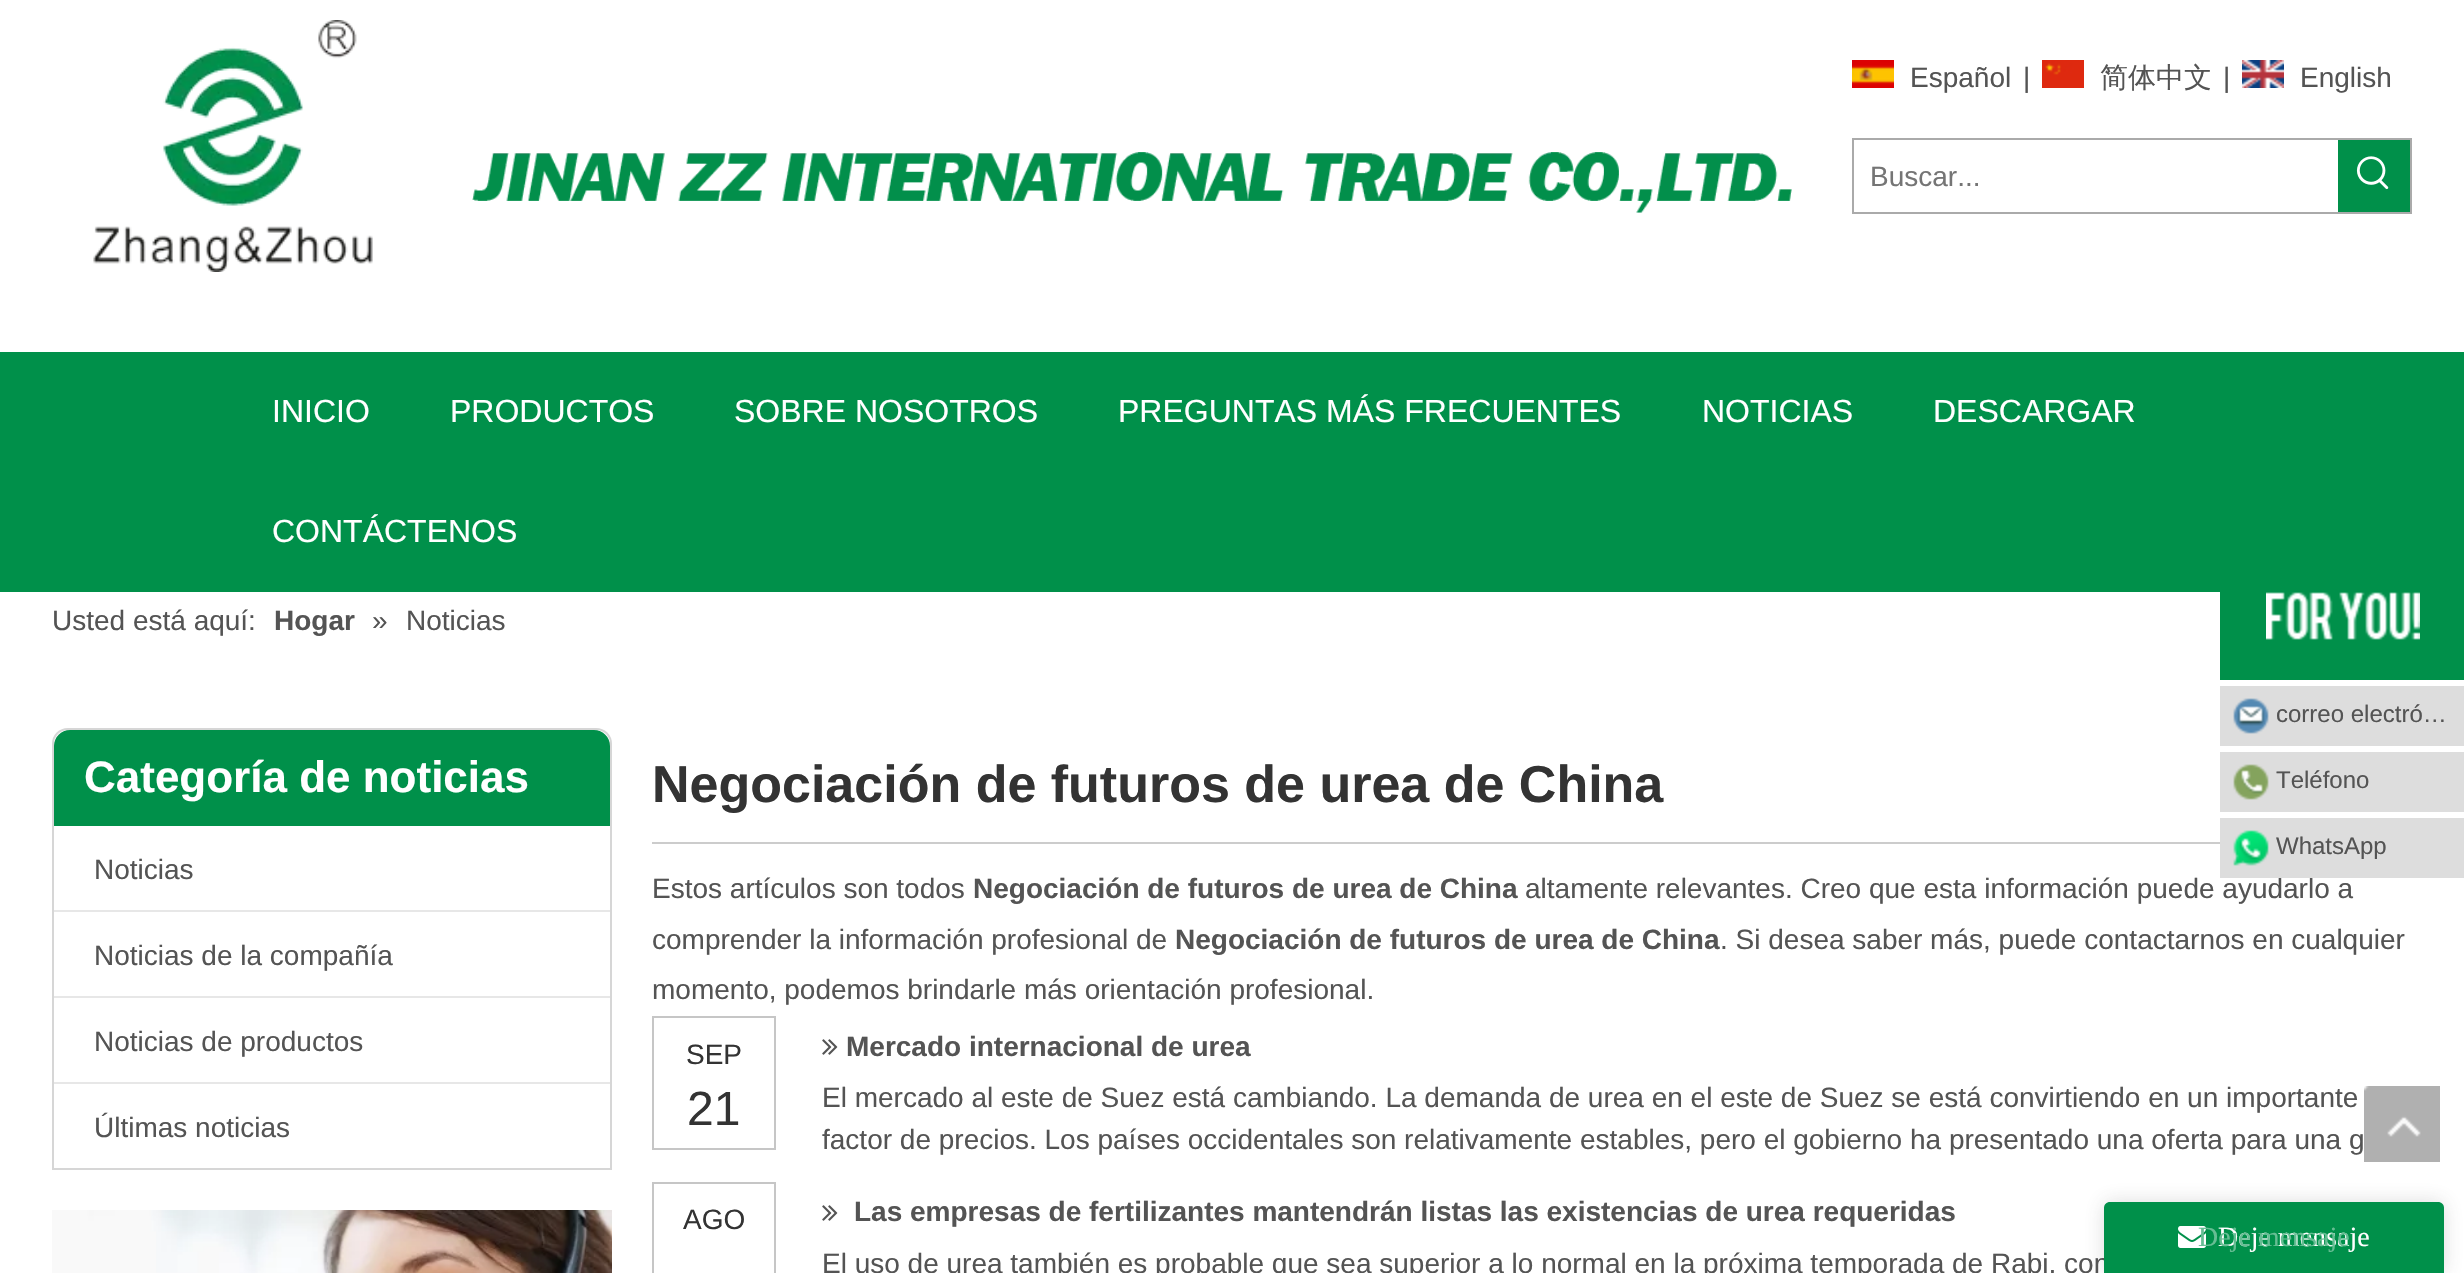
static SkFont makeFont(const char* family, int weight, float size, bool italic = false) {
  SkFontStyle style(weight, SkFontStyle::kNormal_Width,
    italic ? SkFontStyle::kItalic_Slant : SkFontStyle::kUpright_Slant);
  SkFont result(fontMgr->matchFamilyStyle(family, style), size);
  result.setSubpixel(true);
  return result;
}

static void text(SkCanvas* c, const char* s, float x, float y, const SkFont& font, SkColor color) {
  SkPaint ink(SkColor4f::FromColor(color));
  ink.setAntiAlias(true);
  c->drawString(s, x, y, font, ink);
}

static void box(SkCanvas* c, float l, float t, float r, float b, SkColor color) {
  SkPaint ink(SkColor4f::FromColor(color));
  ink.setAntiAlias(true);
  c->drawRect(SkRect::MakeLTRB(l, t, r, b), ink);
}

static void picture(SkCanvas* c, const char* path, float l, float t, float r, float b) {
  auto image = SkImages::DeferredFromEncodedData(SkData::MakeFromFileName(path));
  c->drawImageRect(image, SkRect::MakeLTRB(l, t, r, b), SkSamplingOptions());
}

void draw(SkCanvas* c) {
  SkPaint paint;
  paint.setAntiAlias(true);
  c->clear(0xffffffff);
  picture(c, "img_01.png", 93, 20, 373, 272);
  picture(c, "img_02.png", 472, 152, 1792, 213);
  picture(c, "img_03.png", 1852, 60, 1894, 88);
  SkFont face1 = makeFont("Liberation Sans", 400, 28);
  text(c, "Español", 1910, 87, face1, 0xff545454);
  text(c, "|", 2023, 87, face1, 0xff545454);
  picture(c, "img_04.png", 2042, 60, 2084, 88);
  SkFont face2 = makeFont("WenQuanYi Zen Hei", 500, 28);
  text(c, "简体中文", 2100, 87, face2, 0xff545454);
  text(c, "|", 2223, 87, face1, 0xff545454);
  picture(c, "img_05.png", 2242, 60, 2284, 88);
  text(c, "English", 2300, 87, face1, 0xff545454);
  paint.setStyle(SkPaint::kStroke_Style);
  paint.setStrokeWidth(2);
  paint.setColor(0xffaaaaaa);
  c->drawRect(SkRect::MakeLTRB(1853, 139, 2411, 213), paint);
  text(c, "Buscar...", 1870, 186, face1, 0xff757575);
  box(c, 2338, 140, 2410, 212, 0xff00904a);
  picture(c, "img_06.png", 2356, 156, 2389, 190);
  box(c, 0, 352, 2464, 592, 0xff00904a);
  SkFont face3 = makeFont("Liberation Sans", 400, 32);
  text(c, "INICIO", 272, 422, face3, 0xffffffff);
  text(c, "PRODUCTOS", 450, 422, face3, 0xffffffff);
  text(c, "SOBRE NOSOTROS", 734, 422, face3, 0xffffffff);
  text(c, "PREGUNTAS MÁS FRECUENTES", 1118, 422, face3, 0xffffffff);
  text(c, "NOTICIAS", 1702, 422, face3, 0xffffffff);
  text(c, "DESCARGAR", 1933, 422, face3, 0xffffffff);
  text(c, "CONTÁCTENOS", 272, 542, face3, 0xffffffff);
  text(c, "Usted está aquí:", 52, 630, face1, 0xff545454);
  SkFont face4 = makeFont("Liberation Sans", 700, 28);
  text(c, "Hogar", 274, 630, face4, 0xff545454);
  text(c, "»", 372, 630, face1, 0xff545454);
  text(c, "Noticias", 406, 630, face1, 0xff545454);
  paint.setColor(0xffd6d6d6);
  c->drawPath(SkPathBuilder().moveTo(68, 729).lineTo(596, 729).cubicTo(604.5f, 729, 611, 735.5f, 611, 744).lineTo(611, 1169).lineTo(53, 1169).lineTo(53, 744).cubicTo(53, 735.5f, 59.5f, 729, 68, 729).close().detach(), paint);
  paint.setStyle(SkPaint::kFill_Style);
  paint.setColor(0xff00904a);
  c->drawPath(SkPathBuilder().moveTo(70, 730).lineTo(594, 730).cubicTo(603, 730, 610, 737, 610, 746).lineTo(610, 826).lineTo(54, 826).lineTo(54, 746).cubicTo(54, 737, 61, 730, 70, 730).close().detach(), paint);
  SkFont face5 = makeFont("Liberation Sans", 700, 44);
  text(c, "Categoría de noticias", 84, 792, face5, 0xffffffff);
  text(c, "Noticias", 94, 879, face1, 0xff545454);
  box(c, 54, 910, 610, 912, 0xffe7e7e7);
  text(c, "Noticias de la compañía", 94, 965, face1, 0xff545454);
  box(c, 54, 996, 610, 998, 0xffe7e7e7);
  text(c, "Noticias de productos", 94, 1051, face1, 0xff545454);
  box(c, 54, 1082, 610, 1084, 0xffe7e7e7);
  text(c, "Últimas noticias", 94, 1137, face1, 0xff545454);
  picture(c, "img_07.png", 52, 1210, 612, 1273);
  box(c, 652, 842, 2220, 844, 0xffcccccc);
  SkFont face6 = makeFont("Liberation Sans", 700, 52);
  text(c, "Negociación de futuros de urea de China", 652, 802, face6, 0xff333333);
  text(c, "Estos artículos son todos", 652, 898, face1, 0xff545454);
  text(c, "Negociación de futuros de urea de China", 973, 898, face4, 0xff545454);
  text(c, "altamente relevantes. Creo que esta información puede ayudarlo a", 1525, 898, face1, 0xff545454);
  text(c, "comprender la información profesional de", 652, 949, face1, 0xff545454);
  text(c, "Negociación de futuros de urea de China", 1175, 949, face4, 0xff545454);
  text(c, ". Si desea saber más, puede contactarnos en cualquier", 1720, 949, face1, 0xff545454);
  text(c, "momento, podemos brindarle más orientación profesional.", 652, 999, face1, 0xff545454);
  paint.setStyle(SkPaint::kStroke_Style);
  paint.setColor(0xffc6c6c6);
  c->drawRect(SkRect::MakeLTRB(653, 1017, 775, 1149), paint);
  text(c, "SEP", 686, 1064, face1, 0xff333333);
  SkFont face7 = makeFont("Liberation Sans", 400, 48);
  text(c, "21", 687, 1125, face7, 0xff333333);
  picture(c, "img_08.png", 822, 1039, 838, 1055);
  text(c, "Mercado internacional de urea", 846, 1056, face4, 0xff545454);
  text(c, "El mercado al este de Suez está cambiando. La demanda de urea en el este de Suez se está convirtiendo en un importante", 822, 1107, face1, 0xff545454);
  text(c, "factor de precios. Los países occidentales son relativamente estables, pero el gobierno ha presentado una oferta para una g", 822, 1149, face1, 0xff545454);
  c->drawRect(SkRect::MakeLTRB(653, 1183, 775, 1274), paint);
  text(c, "AGO", 683, 1229, face1, 0xff333333);
  picture(c, "img_08.png", 822, 1205, 838, 1221);
  text(c, "Las empresas de fertilizantes mantendrán listas las existencias de urea requeridas", 854, 1221, face4, 0xff545454);
  text(c, "El uso de urea también es probable que sea superior a lo normal en la próxima temporada de Rabi, con", 822, 1273, face1, 0xff545454);
  box(c, 2220, 592, 2464, 680, 0xff00904a);
  picture(c, "img_09.png", 2266, 592, 2420, 640);
  box(c, 2220, 686, 2464, 746, 0xffdddddd);
  picture(c, "img_10.png", 2233, 698, 2269, 734);
  SkFont face8 = makeFont("Liberation Sans", 400, 24);
  text(c, "correo electró…", 2276, 722, face8, 0xff545454);
  box(c, 2220, 752, 2464, 812, 0xffdddddd);
  picture(c, "img_11.png", 2233, 764, 2269, 800);
  text(c, "Teléfono", 2276, 788, face8, 0xff545454);
  box(c, 2220, 818, 2464, 878, 0xffdddddd);
  picture(c, "img_12.png", 2233, 830, 2269, 866);
  text(c, "WhatsApp", 2276, 854, face8, 0xff545454);
  paint.setStyle(SkPaint::kFill_Style);
  paint.setColor(0x2e444444);
  paint.setMaskFilter(SkMaskFilter::MakeBlur(kNormal_SkBlurStyle, 10));
  c->drawRoundRect(SkRect::MakeLTRB(2104, 1202, 2444, 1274), 6, 6, paint);
  paint.setMaskFilter(nullptr);
  paint.setColor(0xff00904a);
  c->drawPath(SkPathBuilder().moveTo(2110, 1202).lineTo(2438, 1202).cubicTo(2441.5f, 1202, 2444, 1204.5f, 2444, 1208).lineTo(2444, 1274).lineTo(2104, 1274).lineTo(2104, 1208).cubicTo(2104, 1204.5f, 2106.5f, 1202, 2110, 1202).close().detach(), paint);
  picture(c, "img_13.png", 2178, 1226, 2206, 1248);
  SkFont face9 = makeFont("Liberation Serif", 400, 28);
  text(c, "Deje mensaje", 2218, 1246, face9, 0xffffffff);
  text(c, "Deje mensaje", 2198, 1246, face9, 0xff66bd93);
  picture(c, "img_14.png", 2364, 1086, 2440, 1162);
}
